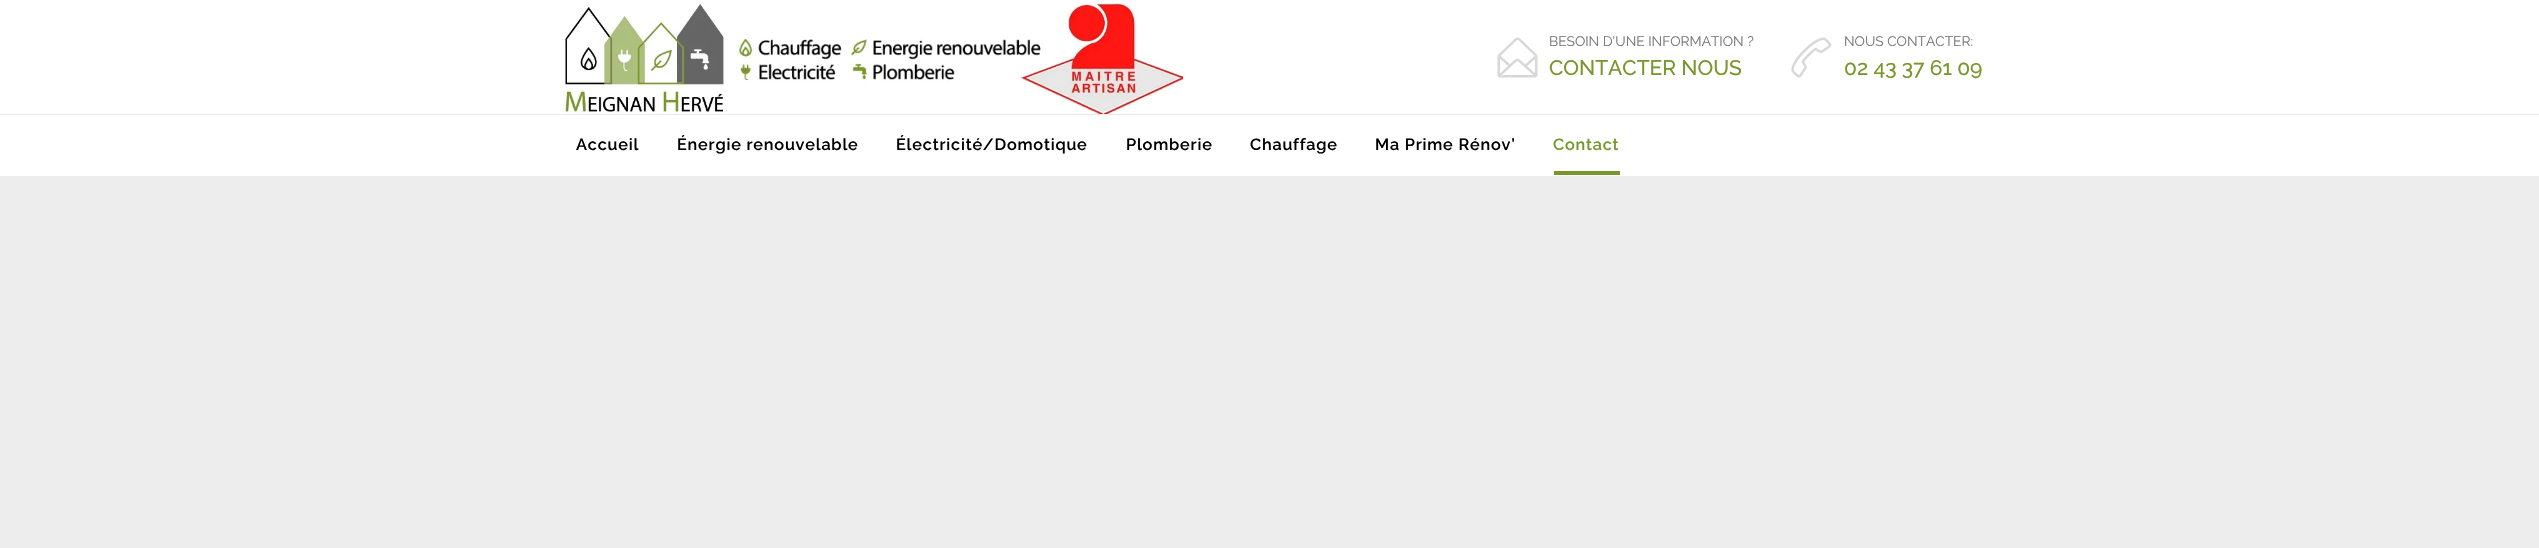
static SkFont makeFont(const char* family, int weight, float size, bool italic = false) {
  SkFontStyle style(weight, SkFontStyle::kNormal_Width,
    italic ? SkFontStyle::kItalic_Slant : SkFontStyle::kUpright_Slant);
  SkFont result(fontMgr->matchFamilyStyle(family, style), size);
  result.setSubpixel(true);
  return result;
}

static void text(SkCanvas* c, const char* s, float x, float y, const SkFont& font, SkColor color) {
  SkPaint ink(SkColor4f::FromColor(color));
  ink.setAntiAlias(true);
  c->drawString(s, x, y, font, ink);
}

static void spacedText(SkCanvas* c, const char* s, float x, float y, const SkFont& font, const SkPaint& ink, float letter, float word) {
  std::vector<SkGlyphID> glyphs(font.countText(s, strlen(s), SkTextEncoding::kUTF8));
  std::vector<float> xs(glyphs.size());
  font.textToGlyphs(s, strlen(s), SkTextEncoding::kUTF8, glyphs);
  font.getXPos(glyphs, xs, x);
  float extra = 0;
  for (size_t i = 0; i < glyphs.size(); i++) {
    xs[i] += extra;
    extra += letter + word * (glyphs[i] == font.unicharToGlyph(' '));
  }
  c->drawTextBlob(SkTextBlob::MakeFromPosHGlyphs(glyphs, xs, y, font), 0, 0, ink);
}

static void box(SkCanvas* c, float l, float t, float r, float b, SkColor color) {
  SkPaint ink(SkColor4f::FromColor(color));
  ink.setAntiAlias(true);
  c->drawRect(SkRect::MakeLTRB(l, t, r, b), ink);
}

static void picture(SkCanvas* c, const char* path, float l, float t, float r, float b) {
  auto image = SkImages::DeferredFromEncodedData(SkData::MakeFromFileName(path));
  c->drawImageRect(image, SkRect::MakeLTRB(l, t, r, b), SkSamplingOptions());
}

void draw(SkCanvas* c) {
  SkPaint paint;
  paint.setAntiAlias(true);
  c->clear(0xffededed);
  box(c, 0, 0, 2539, 114, 0xffffffff);
  picture(c, "img_01.png", 563, 1, 1183, 114);
  picture(c, "img_02.png", 1497, 37, 1538, 78);
  SkFont face1 = makeFont("Raleway", 400, 13.75f);
  text(c, "BESOIN D'UNE INFORMATION ?", 1549, 46, face1, 0xff767676);
  SkFont face2 = makeFont("Raleway", 500, 21);
  text(c, "CONTACTER NOUS", 1549, 75, face2, 0xff78962b);
  picture(c, "img_03.png", 1791, 37, 1832, 78);
  text(c, "NOUS CONTACTER:", 1844, 46, face1, 0xff767676);
  text(c, "02 43 37 61 09", 1844, 75, face2, 0xff78962b);
  box(c, 0, 115, 2539, 176, 0xffffffff);
  box(c, 0, 114, 2539, 115, 0xffeaeaeb);
  SkFont face3 = makeFont("Raleway", 600, 16.25f);
  paint.setColor(0xff000000);
  spacedText(c, "Accueil", 576, 150, face3, paint, 0.8f, 0);
  spacedText(c, "Énergie renouvelable", 677, 150, face3, paint, 0.8f, 0);
  spacedText(c, "Électricité/Domotique", 896, 150, face3, paint, 0.8f, 0);
  spacedText(c, "Plomberie", 1126, 150, face3, paint, 0.8f, 0);
  spacedText(c, "Chauffage", 1250, 150, face3, paint, 0.8f, 0);
  spacedText(c, "Ma Prime Rénov’", 1375, 150, face3, paint, 0.8f, 0);
  box(c, 1554, 171, 1620, 175, 0xff78962b);
  paint.setColor(0xff78962b);
  spacedText(c, "Contact", 1553, 150, face3, paint, 0.8f, 0);
}
